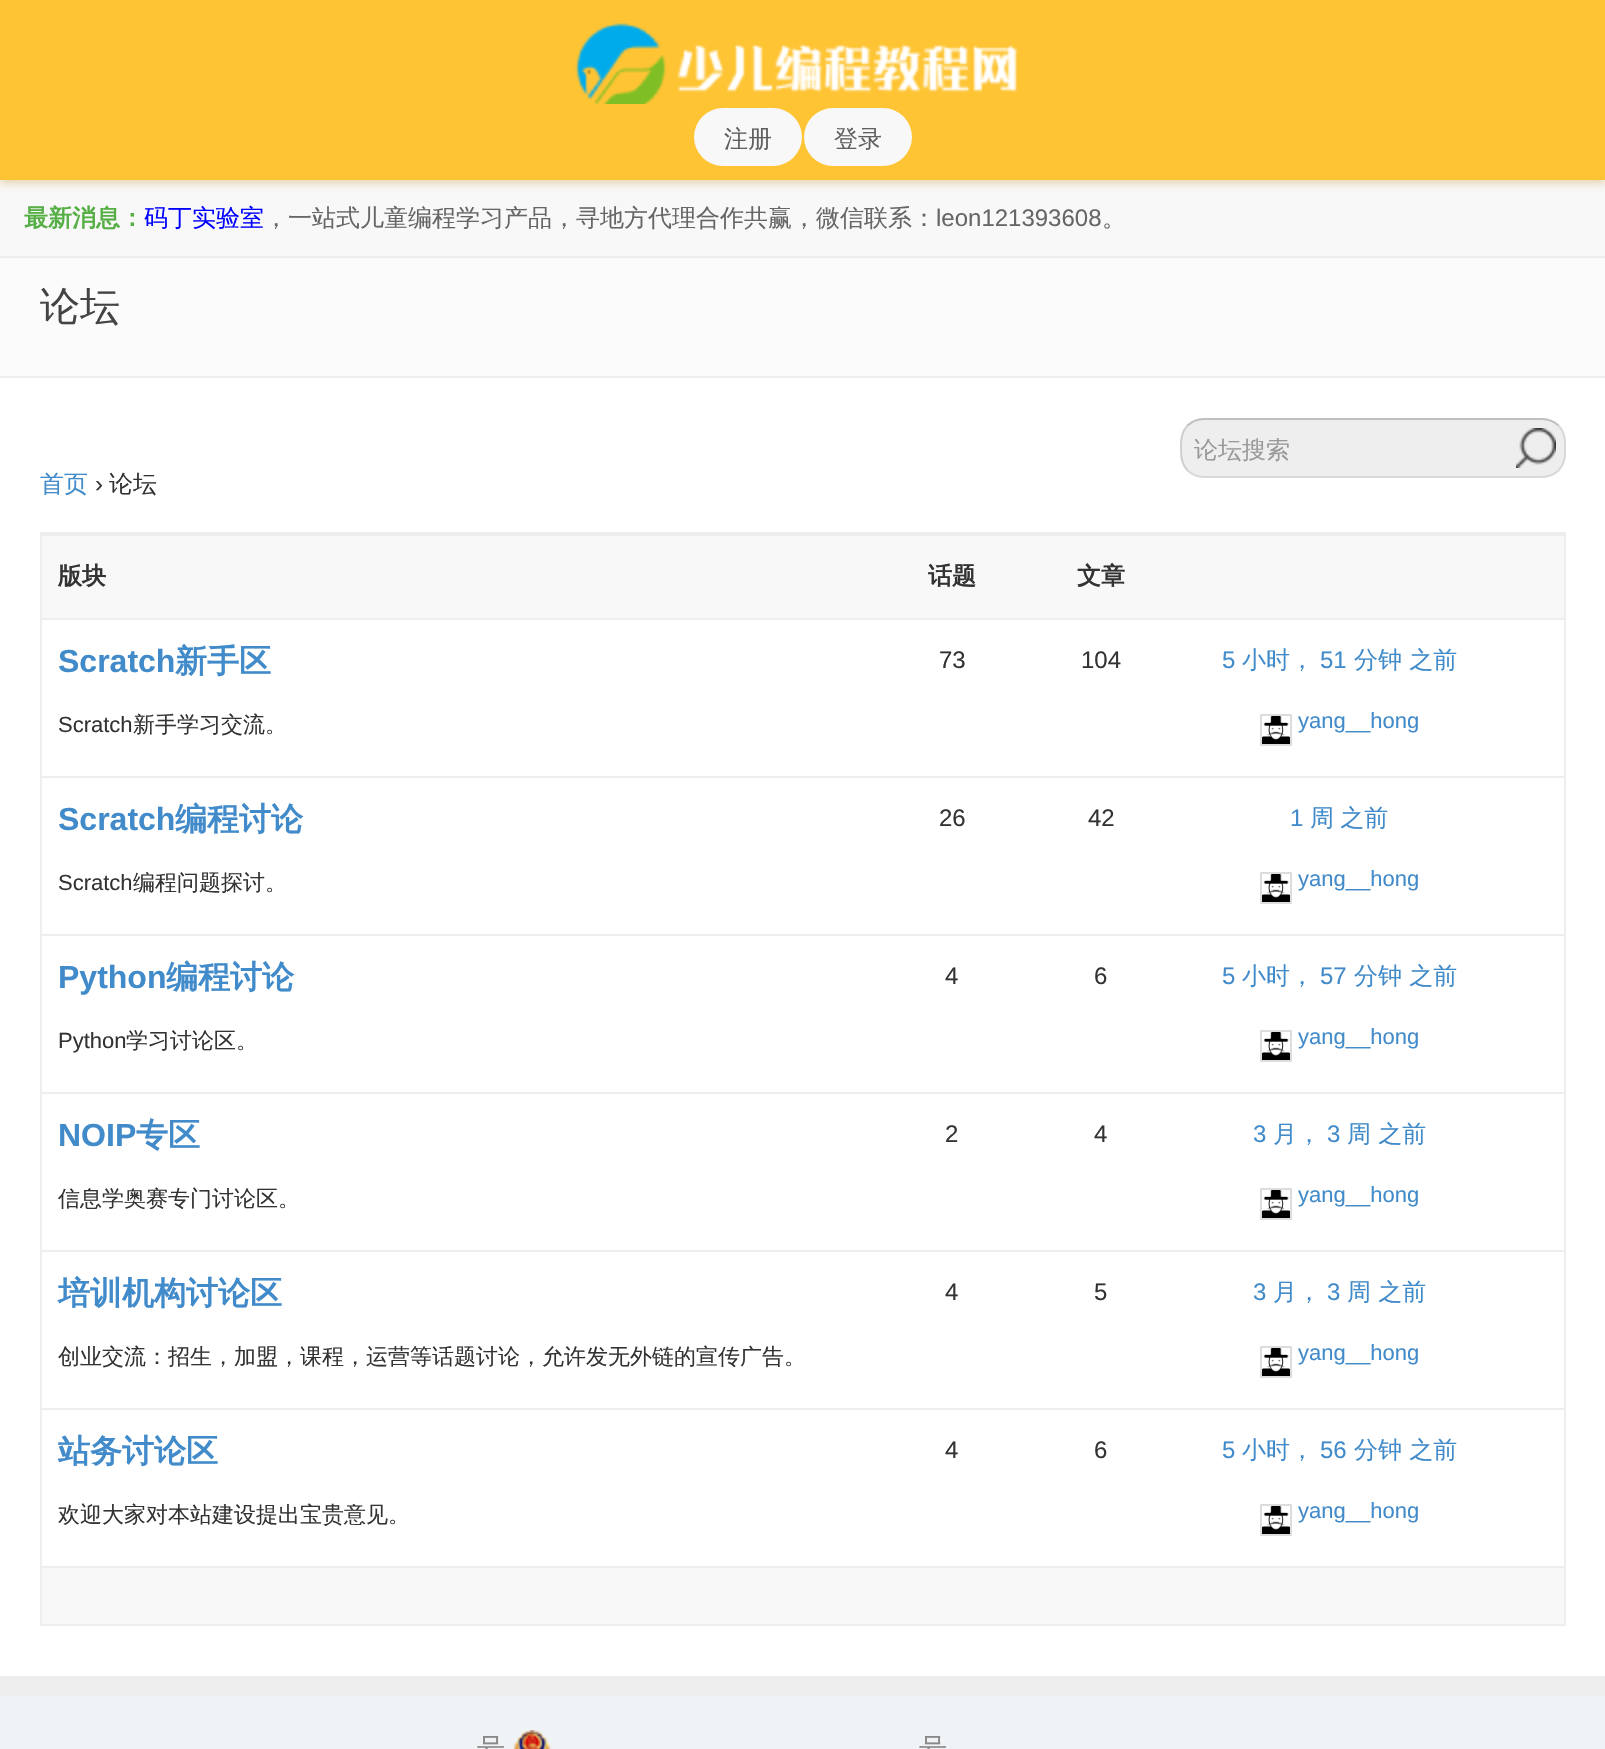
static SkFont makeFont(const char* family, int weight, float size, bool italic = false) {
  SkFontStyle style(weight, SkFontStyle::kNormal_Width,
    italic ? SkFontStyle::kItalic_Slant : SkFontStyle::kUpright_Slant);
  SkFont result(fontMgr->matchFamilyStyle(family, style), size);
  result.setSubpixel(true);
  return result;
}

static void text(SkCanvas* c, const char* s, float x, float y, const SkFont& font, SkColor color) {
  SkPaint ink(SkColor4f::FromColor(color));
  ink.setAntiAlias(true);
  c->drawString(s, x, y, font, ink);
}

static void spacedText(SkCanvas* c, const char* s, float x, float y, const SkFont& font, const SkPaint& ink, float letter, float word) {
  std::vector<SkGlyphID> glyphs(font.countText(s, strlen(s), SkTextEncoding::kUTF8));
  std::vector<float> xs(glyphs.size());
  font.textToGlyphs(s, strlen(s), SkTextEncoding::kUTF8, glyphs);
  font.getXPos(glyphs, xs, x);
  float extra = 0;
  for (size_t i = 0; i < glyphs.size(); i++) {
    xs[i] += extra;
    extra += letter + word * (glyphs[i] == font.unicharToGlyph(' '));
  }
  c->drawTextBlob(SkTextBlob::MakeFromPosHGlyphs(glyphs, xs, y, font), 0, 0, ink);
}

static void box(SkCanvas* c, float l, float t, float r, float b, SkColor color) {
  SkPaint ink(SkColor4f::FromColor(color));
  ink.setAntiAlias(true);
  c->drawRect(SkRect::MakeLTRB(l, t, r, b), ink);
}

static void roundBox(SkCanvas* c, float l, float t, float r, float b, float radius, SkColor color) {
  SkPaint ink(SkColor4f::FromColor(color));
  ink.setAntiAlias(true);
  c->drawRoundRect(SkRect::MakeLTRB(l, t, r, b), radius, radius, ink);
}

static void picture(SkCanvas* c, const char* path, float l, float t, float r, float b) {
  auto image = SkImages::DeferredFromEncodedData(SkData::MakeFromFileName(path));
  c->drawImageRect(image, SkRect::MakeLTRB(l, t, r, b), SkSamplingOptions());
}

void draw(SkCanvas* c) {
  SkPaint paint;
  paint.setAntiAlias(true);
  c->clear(0xffeeeeee);
  box(c, 0, 180, 1605, 256, 0xfff8f8f8);
  paint.setColor(0x42bb7700);
  paint.setMaskFilter(SkMaskFilter::MakeBlur(kNormal_SkBlurStyle, 4));
  c->drawRect(SkRect::MakeLTRB(0, 4, 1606, 184), paint);
  paint.setMaskFilter(nullptr);
  box(c, 0, 0, 1605, 180, 0xfffec433);
  picture(c, "img_01.png", 575, 23, 1019, 104);
  roundBox(c, 694, 108, 802, 166, 29, 0xfff8f8f8);
  SkFont face1 = makeFont("WenQuanYi Zen Hei", 500, 24);
  text(c, "注册", 724, 147, face1, 0xff606060);
  roundBox(c, 804, 108, 912, 166, 29, 0xfff8f8f8);
  text(c, "登录", 834, 147, face1, 0xff606060);
  SkFont face2 = makeFont("WenQuanYi Zen Hei", 700, 24);
  text(c, "最新消息：", 24, 226, face2, 0xff56af45);
  text(c, "码丁实验室", 144, 226, face1, 0xff0000ff);
  text(c, "，一站式儿童编程学习产品，寻地方代理合作共赢，微信联系：", 264, 226, face1, 0xff666666);
  SkFont face3 = makeFont("Liberation Sans", 400, 24);
  text(c, "leon121393608", 936, 226, face3, 0xff666666);
  text(c, "。", 1102, 226, face1, 0xff666666);
  box(c, 0, 258, 1605, 376, 0xfffbfbfb);
  SkFont face4 = makeFont("WenQuanYi Zen Hei", 500, 40);
  text(c, "论坛", 40, 320, face4, 0xff444444);
  box(c, 0, 378, 1605, 1676, 0xffffffff);
  roundBox(c, 1180, 418, 1566, 478, 24, 0xffeeeeee);
  paint.setStyle(SkPaint::kStroke_Style);
  paint.setStrokeWidth(2);
  paint.setColor(0xffc0c0c0);
  c->drawPath(SkPathBuilder().moveTo(1187.5f, 425.5f).cubicTo(1192, 421.5f, 1198, 419, 1204, 419).lineTo(1542, 419).cubicTo(1548, 419, 1554, 421.5f, 1558.5f, 425.5f).detach(), paint);
  paint.setColor(0xffd9d9d9);
  c->drawPath(SkPathBuilder().moveTo(1558.5f, 425.5f).cubicTo(1562.5f, 430, 1565, 436, 1565, 442).lineTo(1565, 454).cubicTo(1565, 460, 1562.5f, 466, 1558.5f, 470.5f).cubicTo(1554, 474.5f, 1548, 477, 1542, 477).lineTo(1204, 477).cubicTo(1198, 477, 1192, 474.5f, 1187.5f, 470.5f).detach(), paint);
  paint.setColor(0xffd0d0d0);
  c->drawPath(SkPathBuilder().moveTo(1187.5f, 470.5f).cubicTo(1181.5f, 464, 1181, 456.5f, 1181, 448).cubicTo(1181, 439.5f, 1181.5f, 432, 1187.5f, 425.5f).detach(), paint);
  text(c, "论坛搜索", 1194, 458, face1, 0xff999999);
  picture(c, "img_02.png", 1516, 428, 1556, 468);
  text(c, "首页", 40, 492, face1, 0xff428bca);
  text(c, "›", 95, 492, face3, 0xff333333);
  text(c, "论坛", 109, 492, face1, 0xff333333);
  paint.setColor(0xffeeeeee);
  c->drawRect(SkRect::MakeLTRB(41, 533, 1565, 1625), paint);
  box(c, 42, 536, 1564, 618, 0xfff8f8f8);
  box(c, 42, 534, 1564, 536, 0xffeeeeee);
  text(c, "版块", 58, 584, face2, 0xff333333);
  text(c, "话题", 928, 584, face2, 0xff333333);
  text(c, "文章", 1077, 584, face2, 0xff333333);
  box(c, 42, 618, 1564, 620, 0xffeeeeee);
  SkFont face5 = makeFont("Liberation Sans", 700, 32);
  text(c, "Scratch", 58, 672, face5, 0xff428bca);
  SkFont face6 = makeFont("WenQuanYi Zen Hei", 700, 32);
  text(c, "新手区", 175, 672, face6, 0xff428bca);
  SkFont face7 = makeFont("Liberation Sans", 400, 22);
  text(c, "Scratch", 58, 732, face7, 0xff333333);
  SkFont face8 = makeFont("WenQuanYi Zen Hei", 500, 22);
  text(c, "新手学习交流。", 133, 732, face8, 0xff333333);
  text(c, "73", 939, 668, face3, 0xff333333);
  text(c, "104", 1081, 668, face3, 0xff333333);
  text(c, "5", 1222, 668, face3, 0xff428bca);
  text(c, "小时，", 1242, 668, face1, 0xff428bca);
  text(c, "51", 1320, 668, face3, 0xff428bca);
  text(c, "分钟 之前", 1354, 668, face1, 0xff428bca);
  paint.setColor(0xffdddddd);
  c->drawRect(SkRect::MakeLTRB(1261, 715, 1291, 745), paint);
  picture(c, "img_03.png", 1262, 716, 1290, 744);
  text(c, "yang__hong", 1298, 728, face7, 0xff428bca);
  box(c, 42, 776, 1564, 778, 0xffeeeeee);
  text(c, "Scratch", 58, 830, face5, 0xff428bca);
  text(c, "编程讨论", 175, 830, face6, 0xff428bca);
  text(c, "Scratch", 58, 890, face7, 0xff333333);
  text(c, "编程问题探讨。", 133, 890, face8, 0xff333333);
  text(c, "26", 939, 826, face3, 0xff333333);
  text(c, "42", 1088, 826, face3, 0xff333333);
  text(c, "1", 1290, 826, face3, 0xff428bca);
  paint.setStyle(SkPaint::kFill_Style);
  paint.setColor(0xff428bca);
  spacedText(c, "周 之前", 1310, 826, face1, paint, 0, -1);
  paint.setStyle(SkPaint::kStroke_Style);
  paint.setColor(0xffdddddd);
  c->drawRect(SkRect::MakeLTRB(1261, 873, 1291, 903), paint);
  picture(c, "img_03.png", 1262, 874, 1290, 902);
  text(c, "yang__hong", 1298, 886, face7, 0xff428bca);
  box(c, 42, 934, 1564, 936, 0xffeeeeee);
  text(c, "Python", 58, 988, face5, 0xff428bca);
  text(c, "编程讨论", 166, 988, face6, 0xff428bca);
  text(c, "Python", 58, 1048, face7, 0xff333333);
  text(c, "学习讨论区。", 126, 1048, face8, 0xff333333);
  text(c, "4", 945, 984, face3, 0xff333333);
  text(c, "6", 1094, 984, face3, 0xff333333);
  text(c, "5", 1222, 984, face3, 0xff428bca);
  text(c, "小时，", 1242, 984, face1, 0xff428bca);
  text(c, "57", 1320, 984, face3, 0xff428bca);
  text(c, "分钟 之前", 1354, 984, face1, 0xff428bca);
  c->drawRect(SkRect::MakeLTRB(1261, 1031, 1291, 1061), paint);
  picture(c, "img_03.png", 1262, 1032, 1290, 1060);
  text(c, "yang__hong", 1298, 1044, face7, 0xff428bca);
  box(c, 42, 1092, 1564, 1094, 0xffeeeeee);
  text(c, "NOIP", 58, 1146, face5, 0xff428bca);
  text(c, "专区", 136, 1146, face6, 0xff428bca);
  text(c, "信息学奥赛专门讨论区。", 58, 1206, face8, 0xff333333);
  text(c, "2", 945, 1142, face3, 0xff333333);
  text(c, "4", 1094, 1142, face3, 0xff333333);
  text(c, "3", 1253, 1142, face3, 0xff428bca);
  text(c, "月，", 1273, 1142, face1, 0xff428bca);
  text(c, "3", 1327, 1142, face3, 0xff428bca);
  text(c, "周 之前", 1347, 1142, face1, 0xff428bca);
  c->drawRect(SkRect::MakeLTRB(1261, 1189, 1291, 1219), paint);
  picture(c, "img_03.png", 1262, 1190, 1290, 1218);
  text(c, "yang__hong", 1298, 1202, face7, 0xff428bca);
  box(c, 42, 1250, 1564, 1252, 0xffeeeeee);
  text(c, "培训机构讨论区", 58, 1304, face6, 0xff428bca);
  text(c, "创业交流：招生，加盟，课程，运营等话题讨论，允许发无外链的宣传广告。", 58, 1364, face8, 0xff333333);
  text(c, "4", 945, 1300, face3, 0xff333333);
  text(c, "5", 1094, 1300, face3, 0xff333333);
  text(c, "3", 1253, 1300, face3, 0xff428bca);
  text(c, "月，", 1273, 1300, face1, 0xff428bca);
  text(c, "3", 1327, 1300, face3, 0xff428bca);
  text(c, "周 之前", 1347, 1300, face1, 0xff428bca);
  c->drawRect(SkRect::MakeLTRB(1261, 1347, 1291, 1377), paint);
  picture(c, "img_03.png", 1262, 1348, 1290, 1376);
  text(c, "yang__hong", 1298, 1360, face7, 0xff428bca);
  box(c, 42, 1408, 1564, 1410, 0xffeeeeee);
  text(c, "站务讨论区", 58, 1462, face6, 0xff428bca);
  text(c, "欢迎大家对本站建设提出宝贵意见。", 58, 1522, face8, 0xff333333);
  text(c, "4", 945, 1458, face3, 0xff333333);
  text(c, "6", 1094, 1458, face3, 0xff333333);
  text(c, "5", 1222, 1458, face3, 0xff428bca);
  text(c, "小时，", 1242, 1458, face1, 0xff428bca);
  text(c, "56", 1320, 1458, face3, 0xff428bca);
  text(c, "分钟 之前", 1354, 1458, face1, 0xff428bca);
  c->drawRect(SkRect::MakeLTRB(1261, 1505, 1291, 1535), paint);
  picture(c, "img_03.png", 1262, 1506, 1290, 1534);
  text(c, "yang__hong", 1298, 1518, face7, 0xff428bca);
  box(c, 42, 1568, 1564, 1624, 0xfff8f8f8);
  box(c, 42, 1566, 1564, 1568, 0xffeeeeee);
  box(c, 0, 1696, 1605, 1749, 0xffeff3f5);
  SkFont face9 = makeFont("WenQuanYi Zen Hei", 500, 28);
  text(c, "号", 477, 1758, face9, 0xff888888);
  picture(c, "img_04.png", 513, 1730, 551, 1749);
  text(c, "号", 919, 1758, face9, 0xff888888);
}
